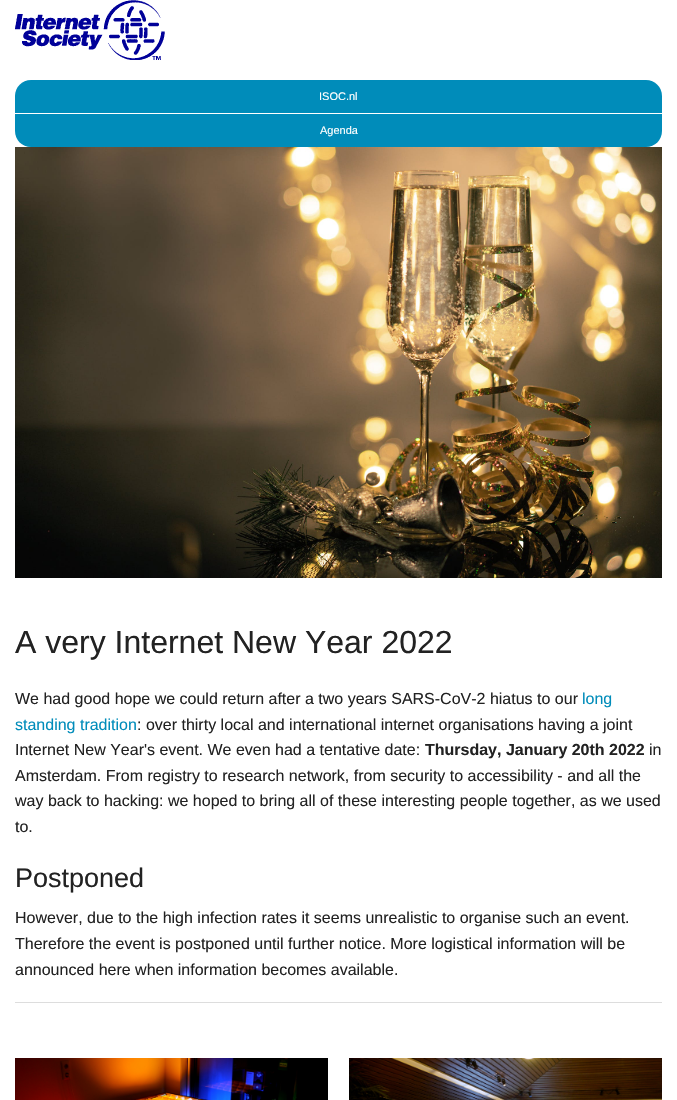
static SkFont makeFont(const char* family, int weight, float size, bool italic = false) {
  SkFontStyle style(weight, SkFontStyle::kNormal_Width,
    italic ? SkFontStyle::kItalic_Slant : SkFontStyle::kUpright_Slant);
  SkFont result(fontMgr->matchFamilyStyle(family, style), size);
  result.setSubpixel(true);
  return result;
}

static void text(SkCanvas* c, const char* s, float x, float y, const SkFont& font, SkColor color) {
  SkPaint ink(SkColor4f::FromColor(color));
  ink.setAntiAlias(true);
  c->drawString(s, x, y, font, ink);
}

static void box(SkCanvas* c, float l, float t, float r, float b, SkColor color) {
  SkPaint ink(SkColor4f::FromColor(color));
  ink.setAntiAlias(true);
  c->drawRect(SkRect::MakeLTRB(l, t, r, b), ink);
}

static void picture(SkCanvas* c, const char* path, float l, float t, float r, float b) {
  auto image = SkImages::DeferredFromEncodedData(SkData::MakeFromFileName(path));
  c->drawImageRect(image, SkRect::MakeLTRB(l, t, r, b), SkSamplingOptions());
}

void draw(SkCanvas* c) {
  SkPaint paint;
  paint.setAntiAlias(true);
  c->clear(0xffffffff);
  picture(c, "img_01.png", 15, 0, 165, 60);
  paint.setColor(0xff008cba);
  c->drawPath(SkPathBuilder().moveTo(31, 80).lineTo(646, 80).cubicTo(655, 80, 662, 87, 662, 96).lineTo(662, 113).lineTo(15, 113).lineTo(15, 96).cubicTo(15, 87, 22, 80, 31, 80).close().detach(), paint);
  SkFont face1 = makeFont("Liberation Sans", 400, 11);
  text(c, "ISOC.nl", 319, 100, face1, 0xffffffff);
  c->drawPath(SkPathBuilder().moveTo(15, 113).lineTo(662, 113).lineTo(662, 131).cubicTo(662, 140, 655, 147, 646, 147).lineTo(31, 147).cubicTo(22, 147, 15, 140, 15, 131).close().detach(), paint);
  box(c, 15, 113, 662, 114, 0xffffffff);
  text(c, "Agenda", 320, 134, face1, 0xffffffff);
  picture(c, "img_02.png", 15, 147, 662, 578);
  SkFont face2 = makeFont("Liberation Sans", 400, 32);
  text(c, "A very Internet New Year 2022", 15, 653, face2, 0xff222222);
  SkFont face3 = makeFont("Liberation Sans", 400, 16);
  text(c, "We had good hope we could return after a two years SARS-CoV-2 hiatus to our", 15, 704, face3, 0xff222222);
  text(c, "long", 582, 704, face3, 0xff008cba);
  text(c, "standing tradition", 15, 730, face3, 0xff008cba);
  text(c, ": over thirty local and international internet organisations having a joint", 137, 730, face3, 0xff222222);
  text(c, "Internet New Year's event. We even had a tentative date:", 15, 755, face3, 0xff222222);
  SkFont face4 = makeFont("Liberation Sans", 700, 16);
  text(c, "Thursday, January 20th 2022", 425, 755, face4, 0xff222222);
  text(c, "in", 649, 755, face3, 0xff222222);
  text(c, "Amsterdam. From registry to research network, from security to accessibility - and all the", 15, 781, face3, 0xff222222);
  text(c, "way back to hacking: we hoped to bring all of these interesting people together, as we used", 15, 806, face3, 0xff222222);
  text(c, "to.", 15, 832, face3, 0xff222222);
  SkFont face5 = makeFont("Liberation Sans", 400, 27);
  text(c, "Postponed", 15, 887, face5, 0xff222222);
  text(c, "However, due to the high infection rates it seems unrealistic to organise such an event.", 15, 923, face3, 0xff222222);
  text(c, "Therefore the event is postponed until further notice. More logistical information will be", 15, 949, face3, 0xff222222);
  text(c, "announced here when information becomes available.", 15, 975, face3, 0xff222222);
  box(c, 15, 1002, 662, 1003, 0xffdddddd);
  picture(c, "img_03.png", 15, 1058, 328, 1100);
  picture(c, "img_04.png", 349, 1058, 662, 1100);
}
